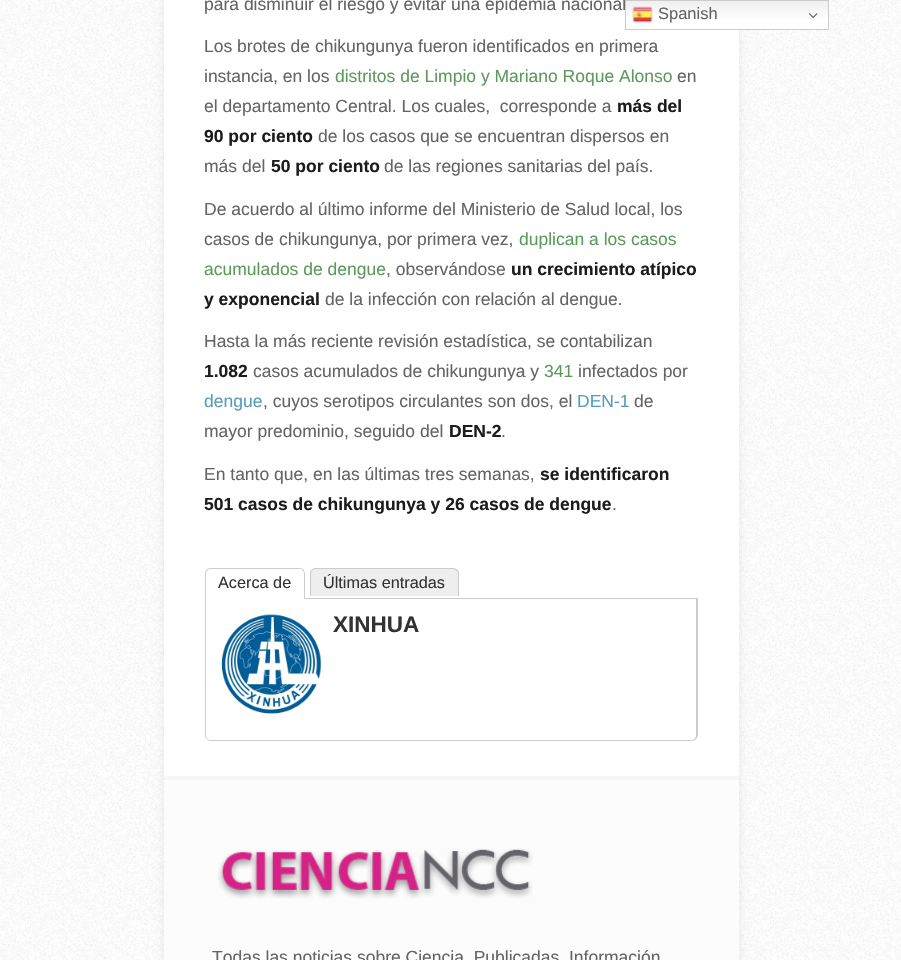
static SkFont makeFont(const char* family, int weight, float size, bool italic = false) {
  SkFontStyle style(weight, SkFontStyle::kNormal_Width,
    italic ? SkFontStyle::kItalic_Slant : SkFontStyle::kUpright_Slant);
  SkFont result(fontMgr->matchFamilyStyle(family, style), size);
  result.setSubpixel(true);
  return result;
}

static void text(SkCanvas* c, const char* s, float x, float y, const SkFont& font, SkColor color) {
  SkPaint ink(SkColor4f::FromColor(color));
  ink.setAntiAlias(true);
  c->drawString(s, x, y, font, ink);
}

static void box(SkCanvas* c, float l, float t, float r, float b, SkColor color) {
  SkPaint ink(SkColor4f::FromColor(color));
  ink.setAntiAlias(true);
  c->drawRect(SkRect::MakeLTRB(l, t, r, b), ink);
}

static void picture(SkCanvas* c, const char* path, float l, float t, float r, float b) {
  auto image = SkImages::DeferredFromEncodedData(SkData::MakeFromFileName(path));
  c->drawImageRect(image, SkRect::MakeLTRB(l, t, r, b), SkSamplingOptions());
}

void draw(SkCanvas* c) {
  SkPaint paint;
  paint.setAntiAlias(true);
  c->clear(0xffffffff);
  picture(c, "img_01.png", 0, 0, 901, 960);
  paint.setColor(0x14000000);
  paint.setMaskFilter(SkMaskFilter::MakeBlur(kNormal_SkBlurStyle, 4.5f));
  c->drawRect(SkRect::MakeLTRB(164, -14, 739, 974), paint);
  paint.setMaskFilter(nullptr);
  box(c, 164, 0, 739, 776, 0xffffffff);
  SkFont face1 = makeFont("Liberation Sans", 400, 17.5f);
  text(c, "para disminuir el riesgo y evitar una epidemia nacional", 204, 10, face1, 0xff656464);
  text(c, "Los brotes de chikungunya fueron identificados en primera", 204, 52, face1, 0xff656464);
  text(c, "instancia, en los", 204, 82, face1, 0xff656464);
  text(c, "distritos de Limpio y Mariano Roque Alonso", 335, 82, face1, 0xff5d995d);
  text(c, "en", 677, 82, face1, 0xff656464);
  text(c, "el departamento Central. Los cuales,  corresponde a", 204, 112, face1, 0xff656464);
  SkFont face2 = makeFont("Liberation Sans", 700, 17.5f);
  text(c, "más del", 617, 112, face2, 0xff1c1c1c);
  text(c, "90 por ciento", 204, 142, face2, 0xff1c1c1c);
  text(c, "de los casos que se encuentran dispersos en", 318, 142, face1, 0xff656464);
  text(c, "más del", 204, 172, face1, 0xff656464);
  text(c, "50 por ciento", 271, 172, face2, 0xff1c1c1c);
  text(c, "de las regiones sanitarias del país.", 384, 172, face1, 0xff656464);
  text(c, "De acuerdo al último informe del Ministerio de Salud local, los", 204, 215, face1, 0xff656464);
  text(c, "casos de chikungunya, por primera vez,", 204, 245, face1, 0xff656464);
  text(c, "duplican a los casos", 519, 245, face1, 0xff5d995d);
  text(c, "acumulados de dengue", 204, 275, face1, 0xff5d995d);
  text(c, ", observándose", 386, 275, face1, 0xff656464);
  text(c, "un crecimiento atípico", 511, 275, face2, 0xff1c1c1c);
  text(c, "y exponencial", 204, 305, face2, 0xff1c1c1c);
  text(c, "de la infección con relación al dengue.", 325, 305, face1, 0xff656464);
  text(c, "Hasta la más reciente revisión estadística, se contabilizan", 204, 347, face1, 0xff656464);
  text(c, "1.082", 204, 377, face2, 0xff1c1c1c);
  text(c, "casos acumulados de chikungunya y", 253, 377, face1, 0xff656464);
  text(c, "341", 544, 377, face1, 0xff5d995d);
  text(c, "infectados por", 578, 377, face1, 0xff656464);
  text(c, "dengue", 204, 407, face1, 0xff549eb9);
  text(c, ", cuyos serotipos circulantes son dos, el", 263, 407, face1, 0xff656464);
  text(c, "DEN-1", 577, 407, face1, 0xff549eb9);
  text(c, "de", 634, 407, face1, 0xff656464);
  text(c, "mayor predominio, seguido del", 204, 437, face1, 0xff656464);
  text(c, "DEN-2", 449, 437, face2, 0xff1c1c1c);
  text(c, ".", 501, 437, face1, 0xff656464);
  text(c, "En tanto que, en las últimas tres semanas,", 204, 480, face1, 0xff656464);
  text(c, "se identificaron", 540, 480, face2, 0xff1c1c1c);
  text(c, "501 casos de chikungunya y 26 casos de dengue", 204, 510, face2, 0xff1c1c1c);
  text(c, ".", 612, 510, face1, 0xff656464);
  box(c, 305, 598, 698, 599, 0xffcccccc);
  paint.setColor(0xffcccccc);
  c->drawPath(SkPathBuilder(SkPathFillType::kEvenOdd).moveTo(211, 568).lineTo(299, 568).cubicTo(302, 568, 305, 570, 305, 574).lineTo(305, 599).lineTo(205, 599).lineTo(205, 574).cubicTo(205, 570, 208, 568, 211, 568).close().moveTo(211, 569).lineTo(299, 569).cubicTo(302, 569, 304, 571, 304, 574).lineTo(304, 599).lineTo(206, 599).lineTo(206, 574).cubicTo(206, 571, 208, 569, 211, 569).close().detach(), paint);
  SkFont face3 = makeFont("Liberation Sans", 400, 16.25f);
  text(c, "Acerca de", 218, 588, face3, 0xff333333);
  paint.setColor(0xffeeeeee);
  c->drawPath(SkPathBuilder().moveTo(316, 568).lineTo(453, 568).cubicTo(456.5f, 568, 459, 570.5f, 459, 574).lineTo(459, 596).lineTo(310, 596).lineTo(310, 574).cubicTo(310, 570.5f, 312.5f, 568, 316, 568).close().detach(), paint);
  paint.setColor(0xffcccccc);
  c->drawPath(SkPathBuilder(SkPathFillType::kEvenOdd).moveTo(316, 568).lineTo(452, 568).cubicTo(456, 568, 459, 570, 459, 574).lineTo(459, 596).lineTo(310, 596).lineTo(310, 574).cubicTo(310, 570, 313, 568, 316, 568).close().moveTo(316, 569).lineTo(452, 569).cubicTo(455, 569, 458, 571, 458, 574).lineTo(458, 596).lineTo(311, 596).lineTo(311, 574).cubicTo(311, 571, 313, 569, 316, 569).close().detach(), paint);
  text(c, "Últimas entradas", 323, 588, face3, 0xff333333);
  c->drawPath(SkPathBuilder(SkPathFillType::kEvenOdd).moveTo(205, 599).lineTo(698, 599).lineTo(698, 735).cubicTo(698, 738, 695, 741, 691, 741).lineTo(211, 741).cubicTo(208, 741, 205, 738, 205, 735).close().moveTo(206, 599).lineTo(696, 599).lineTo(696, 735).cubicTo(696, 738, 694, 740, 691, 740).lineTo(211, 740).cubicTo(208, 740, 206, 738, 206, 735).close().detach(), paint);
  picture(c, "img_02.png", 221, 614, 322, 714);
  SkFont face4 = makeFont("Liberation Sans", 700, 22.5f);
  text(c, "XINHUA", 333, 632, face4, 0xff333333);
  box(c, 164, 780, 739, 960, 0xfffcfcfc);
  box(c, 164, 776, 739, 780, 0xfff7f7f7);
  picture(c, "img_03.png", 218, 848, 533, 899);
  text(c, "Todas las noticias sobre Ciencia, Publicadas, Información", 212, 963, face1, 0xff656464);
  {
    const SkColor colors[] = {0xffefefef, 0xffffffff};
    const float stops[] = {0, 0.7f};
    const SkPoint ends[] = {{727, 0}, {727, 30}};
    paint.setShader(SkGradientShader::MakeLinear(ends, colors, stops, 2, SkTileMode::kClamp));
    paint.setAlpha(255);
  }
  c->drawRect(SkRect::MakeLTRB(626, 1, 828, 29), paint);
  paint.setStyle(SkPaint::kStroke_Style);
  paint.setStrokeWidth(1);
  paint.setShader(nullptr);
  paint.setColor(0xffcccccc);
  c->drawRect(SkRect::MakeLTRB(625.5f, 0.5f, 828.5f, 29.5f), paint);
  picture(c, "img_04.png", 632, 6, 653, 24);
  SkFont face5 = makeFont("Liberation Sans", 400, 16.5f);
  text(c, "Spanish", 658, 19, face5, 0xff656464);
  picture(c, "img_05.png", 809, 13, 818, 19);
}
